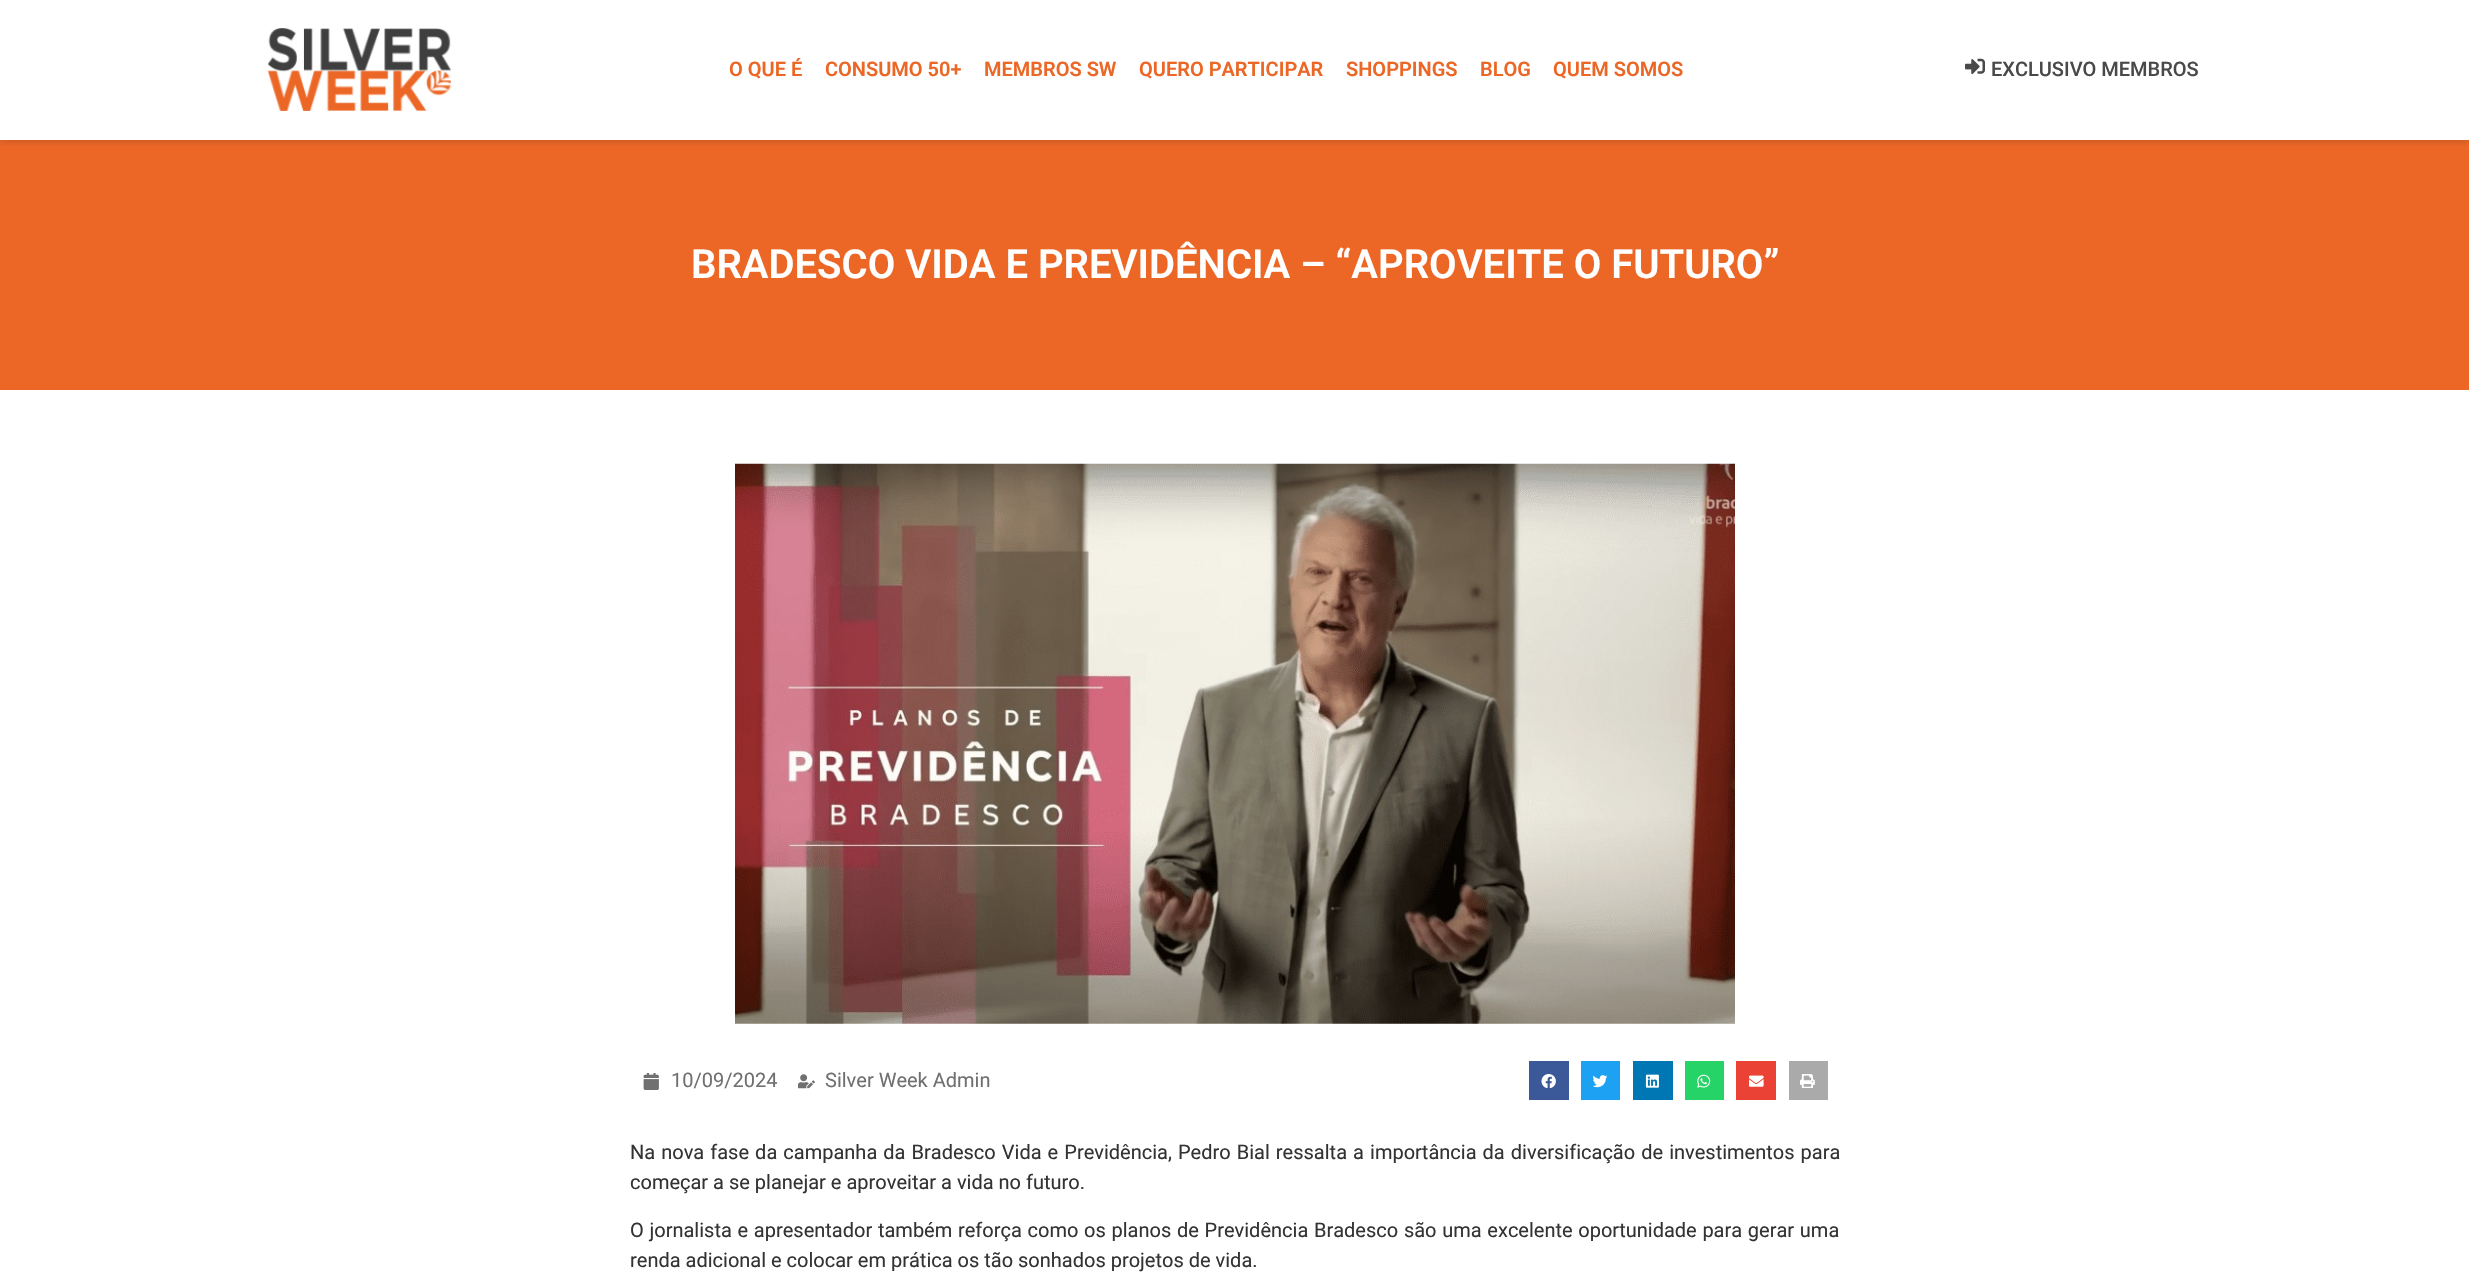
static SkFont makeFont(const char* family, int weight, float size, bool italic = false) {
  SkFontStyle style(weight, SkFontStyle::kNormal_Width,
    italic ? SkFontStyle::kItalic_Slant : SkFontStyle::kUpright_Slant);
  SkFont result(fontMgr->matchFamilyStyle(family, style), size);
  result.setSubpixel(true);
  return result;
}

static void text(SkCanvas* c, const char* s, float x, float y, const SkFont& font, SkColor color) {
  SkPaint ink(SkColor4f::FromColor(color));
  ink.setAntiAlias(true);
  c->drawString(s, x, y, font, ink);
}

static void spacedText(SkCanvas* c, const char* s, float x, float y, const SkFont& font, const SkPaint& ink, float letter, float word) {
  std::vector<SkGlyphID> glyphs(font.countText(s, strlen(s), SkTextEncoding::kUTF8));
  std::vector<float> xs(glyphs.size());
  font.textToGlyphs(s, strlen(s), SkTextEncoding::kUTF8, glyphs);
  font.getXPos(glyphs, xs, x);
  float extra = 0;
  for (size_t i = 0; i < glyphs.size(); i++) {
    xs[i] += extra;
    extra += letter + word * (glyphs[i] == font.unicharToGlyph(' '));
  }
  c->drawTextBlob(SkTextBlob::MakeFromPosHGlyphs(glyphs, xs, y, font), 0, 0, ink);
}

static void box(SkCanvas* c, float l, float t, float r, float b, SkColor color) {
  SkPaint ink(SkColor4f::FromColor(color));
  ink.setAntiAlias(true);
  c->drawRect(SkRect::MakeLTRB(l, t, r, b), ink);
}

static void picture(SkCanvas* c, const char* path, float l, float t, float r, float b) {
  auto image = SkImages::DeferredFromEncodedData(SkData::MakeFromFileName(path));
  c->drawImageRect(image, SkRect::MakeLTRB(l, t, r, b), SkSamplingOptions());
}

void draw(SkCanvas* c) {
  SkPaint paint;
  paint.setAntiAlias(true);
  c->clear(0xffffffff);
  box(c, 0, 140, 2469, 390, 0xffec6726);
  c->save();
  c->clipRect(SkRect::MakeLTRB(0, 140, 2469, 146));
  paint.setColor(0x33000000);
  paint.setMaskFilter(SkMaskFilter::MakeBlur(kNormal_SkBlurStyle, 5));
  c->drawRect(SkRect::MakeLTRB(0, 0, 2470, 140), paint);
  paint.setMaskFilter(nullptr);
  c->restore();
  picture(c, "img_01.png", 267, 28, 452, 111);
  SkFont face1 = makeFont("Roboto", 600, 20);
  text(c, "O QUE É", 729, 76, face1, 0xffec6726);
  text(c, "CONSUMO 50+", 825, 76, face1, 0xffec6726);
  text(c, "MEMBROS SW", 984, 76, face1, 0xffec6726);
  text(c, "QUERO PARTICIPAR", 1139, 76, face1, 0xffec6726);
  text(c, "SHOPPINGS", 1346, 76, face1, 0xffec6726);
  text(c, "BLOG", 1480, 76, face1, 0xffec6726);
  text(c, "QUEM SOMOS", 1553, 76, face1, 0xffec6726);
  picture(c, "img_02.png", 1965, 58, 1985, 74);
  SkFont face2 = makeFont("Roboto", 500, 20);
  text(c, "EXCLUSIVO MEMBROS", 1991, 76, face2, 0xff494949);
  SkFont face3 = makeFont("Roboto", 600, 40);
  text(c, "BRADESCO VIDA E PREVIDÊNCIA – “APROVEITE O FUTURO”", 691, 278, face3, 0xffffffff);
  picture(c, "img_03.png", 735, 463, 1735, 1024);
  picture(c, "img_04.png", 643, 1073, 659, 1090);
  SkFont face4 = makeFont("Roboto", 400, 20);
  text(c, "10/09/2024", 671, 1087, face4, 0xff707070);
  picture(c, "img_05.png", 798, 1074, 815, 1089);
  text(c, "Silver Week Admin", 825, 1087, face4, 0xff707070);
  box(c, 1529, 1061, 1569, 1100, 0xff3b5998);
  picture(c, "img_06.png", 1541, 1074, 1556, 1088);
  box(c, 1581, 1061, 1620, 1100, 0xff1da1f2);
  picture(c, "img_07.png", 1593, 1075, 1608, 1088);
  box(c, 1633, 1061, 1673, 1100, 0xff0077b5);
  picture(c, "img_08.png", 1645, 1074, 1659, 1088);
  box(c, 1685, 1061, 1724, 1100, 0xff25d366);
  picture(c, "img_09.png", 1697, 1074, 1711, 1088);
  box(c, 1736, 1061, 1776, 1100, 0xffea4335);
  picture(c, "img_10.png", 1749, 1075, 1764, 1087);
  box(c, 1789, 1061, 1828, 1100, 0xffaaaaaa);
  picture(c, "img_11.png", 1800, 1074, 1815, 1088);
  paint.setColor(0xff333333);
  spacedText(c, "Na nova fase da campanha da Bradesco Vida e Previdência, Pedro Bial ressalta a importância da diversificação de investimentos para", 630, 1159, face4, paint, 0, 1.1f);
  text(c, "começar a se planejar e aproveitar a vida no futuro.", 630, 1189, face4, 0xff333333);
  spacedText(c, "O jornalista e apresentador também reforça como os planos de Previdência Bradesco são uma excelente oportunidade para gerar uma", 630, 1237, face4, paint, 0, 0.75f);
  text(c, "renda adicional e colocar em prática os tão sonhados projetos de vida.", 630, 1267, face4, 0xff333333);
}
